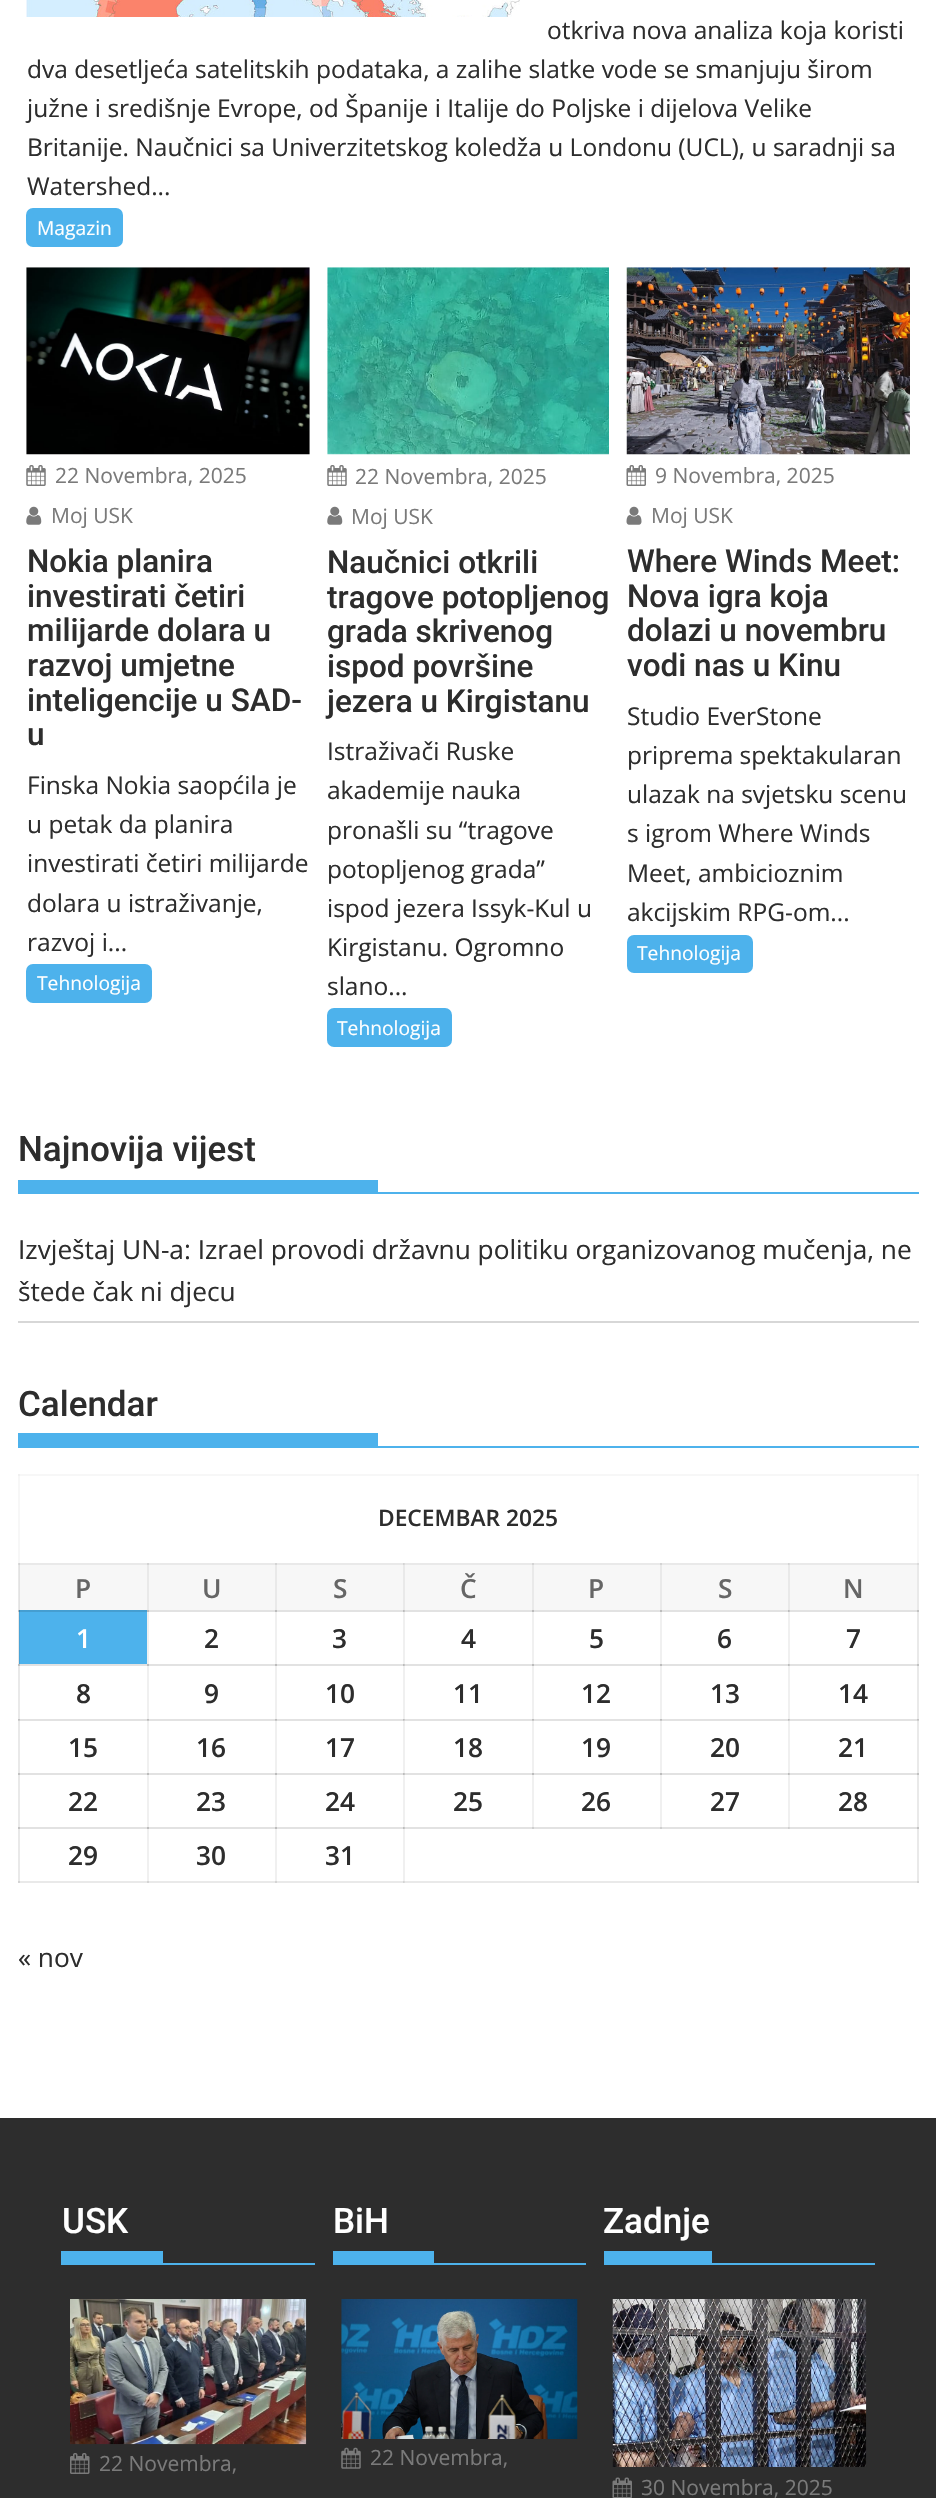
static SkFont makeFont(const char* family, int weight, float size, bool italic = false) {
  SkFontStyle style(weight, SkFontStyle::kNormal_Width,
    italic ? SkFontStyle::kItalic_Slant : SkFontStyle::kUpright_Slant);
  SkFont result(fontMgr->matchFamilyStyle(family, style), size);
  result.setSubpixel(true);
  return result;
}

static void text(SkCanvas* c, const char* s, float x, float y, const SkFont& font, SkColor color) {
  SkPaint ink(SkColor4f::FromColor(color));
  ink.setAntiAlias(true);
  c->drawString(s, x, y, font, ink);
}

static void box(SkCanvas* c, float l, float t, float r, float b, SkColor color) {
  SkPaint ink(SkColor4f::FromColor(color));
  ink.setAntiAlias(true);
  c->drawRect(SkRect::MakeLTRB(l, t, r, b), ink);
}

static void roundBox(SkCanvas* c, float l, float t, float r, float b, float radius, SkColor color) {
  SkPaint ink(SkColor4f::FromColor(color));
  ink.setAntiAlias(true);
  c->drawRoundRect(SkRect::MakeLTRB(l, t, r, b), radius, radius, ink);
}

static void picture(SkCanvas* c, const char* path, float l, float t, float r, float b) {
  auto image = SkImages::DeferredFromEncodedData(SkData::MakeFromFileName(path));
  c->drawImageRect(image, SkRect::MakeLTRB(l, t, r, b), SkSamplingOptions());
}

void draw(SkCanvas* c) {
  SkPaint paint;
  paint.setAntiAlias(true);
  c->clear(0xffffffff);
  box(c, 147, 1610, 149, 1883, 0xfff0f0f0);
  box(c, 275, 1610, 277, 1883, 0xfff0f0f0);
  box(c, 403, 1610, 405, 1883, 0xfff0f0f0);
  box(c, 532, 1610, 534, 1829, 0xfff0f0f0);
  box(c, 660, 1610, 662, 1829, 0xfff0f0f0);
  box(c, 788, 1610, 790, 1829, 0xfff0f0f0);
  box(c, 147, 1610, 919, 1612, 0xffe2e2e2);
  box(c, 147, 1610, 149, 1612, 0xffbcbcbc);
  box(c, 275, 1610, 277, 1612, 0xffbcbcbc);
  box(c, 403, 1610, 405, 1612, 0xffc8c8c8);
  box(c, 403, 1610, 404, 1612, 0xffbcbcbc);
  box(c, 532, 1610, 534, 1612, 0xffbcbcbc);
  box(c, 660, 1610, 662, 1612, 0xffbcbcbc);
  box(c, 788, 1610, 790, 1612, 0xffc8c8c8);
  box(c, 788, 1610, 789, 1612, 0xffbcbcbc);
  box(c, 18, 1664, 919, 1666, 0xffe2e2e2);
  box(c, 147, 1664, 149, 1666, 0xffbcbcbc);
  box(c, 275, 1664, 277, 1666, 0xffbcbcbc);
  box(c, 403, 1664, 405, 1666, 0xffc8c8c8);
  box(c, 403, 1664, 404, 1666, 0xffbcbcbc);
  box(c, 532, 1664, 534, 1666, 0xffbcbcbc);
  box(c, 660, 1664, 662, 1666, 0xffbcbcbc);
  box(c, 788, 1664, 790, 1666, 0xffc8c8c8);
  box(c, 788, 1664, 789, 1666, 0xffbcbcbc);
  box(c, 18, 1719, 919, 1721, 0xffe2e2e2);
  box(c, 147, 1720, 149, 1721, 0xffc8c8c8);
  box(c, 147, 1719, 149, 1720, 0xffbcbcbc);
  box(c, 275, 1720, 277, 1721, 0xffc8c8c8);
  box(c, 275, 1719, 277, 1720, 0xffbcbcbc);
  box(c, 403, 1720, 405, 1721, 0xffd4d4d4);
  box(c, 403, 1719, 405, 1720, 0xffc8c8c8);
  box(c, 403, 1719, 404, 1721, 0xffc8c8c8);
  box(c, 403, 1719, 404, 1720, 0xffbcbcbc);
  box(c, 532, 1720, 534, 1721, 0xffc8c8c8);
  box(c, 532, 1719, 534, 1720, 0xffbcbcbc);
  box(c, 660, 1720, 662, 1721, 0xffc8c8c8);
  box(c, 660, 1719, 662, 1720, 0xffbcbcbc);
  box(c, 788, 1720, 790, 1721, 0xffd4d4d4);
  box(c, 788, 1719, 790, 1720, 0xffc8c8c8);
  box(c, 788, 1719, 789, 1721, 0xffc8c8c8);
  box(c, 788, 1719, 789, 1720, 0xffbcbcbc);
  box(c, 18, 1773, 919, 1775, 0xffe2e2e2);
  box(c, 147, 1773, 149, 1775, 0xffbcbcbc);
  box(c, 275, 1773, 277, 1775, 0xffbcbcbc);
  box(c, 403, 1773, 405, 1775, 0xffc8c8c8);
  box(c, 403, 1773, 404, 1775, 0xffbcbcbc);
  box(c, 532, 1773, 534, 1775, 0xffbcbcbc);
  box(c, 660, 1773, 662, 1775, 0xffbcbcbc);
  box(c, 788, 1773, 790, 1775, 0xffc8c8c8);
  box(c, 788, 1773, 789, 1775, 0xffbcbcbc);
  box(c, 18, 1827, 919, 1829, 0xffe2e2e2);
  box(c, 147, 1827, 149, 1829, 0xffbcbcbc);
  box(c, 275, 1827, 277, 1829, 0xffbcbcbc);
  box(c, 532, 1827, 534, 1829, 0xffcecece);
  box(c, 660, 1827, 662, 1829, 0xffcecece);
  box(c, 788, 1827, 790, 1829, 0xffd4d4d4);
  box(c, 788, 1827, 789, 1829, 0xffcecece);
  box(c, 403, 1827, 405, 1829, 0xffc8c8c8);
  box(c, 403, 1827, 404, 1829, 0xffbcbcbc);
  box(c, 18, 1474, 20, 1563, 0xfff7f7f7);
  box(c, 18, 1563, 19, 1666, 0xffe9e9e9);
  box(c, 18, 1563, 20, 1565, 0xffdbdbdb);
  box(c, 18, 1610, 20, 1612, 0xffc2c2c2);
  box(c, 18, 1664, 20, 1883, 0xffe9e9e9);
  box(c, 18, 1664, 20, 1666, 0xffc2c2c2);
  box(c, 18, 1720, 20, 1721, 0xffcecece);
  box(c, 18, 1719, 20, 1720, 0xffc2c2c2);
  box(c, 18, 1773, 20, 1775, 0xffc2c2c2);
  box(c, 18, 1827, 20, 1829, 0xffc2c2c2);
  box(c, 18, 1881, 919, 1883, 0xffe9e9e9);
  box(c, 147, 1881, 149, 1883, 0xffd4d4d4);
  box(c, 275, 1881, 277, 1883, 0xffd4d4d4);
  box(c, 403, 1881, 405, 1883, 0xffdbdbdb);
  box(c, 403, 1881, 404, 1883, 0xffd4d4d4);
  box(c, 18, 1881, 20, 1883, 0xffd4d4d4);
  box(c, 917, 1474, 919, 1563, 0xfff7f7f7);
  box(c, 917, 1563, 919, 1883, 0xffe9e9e9);
  box(c, 917, 1563, 919, 1565, 0xffdbdbdb);
  box(c, 917, 1610, 919, 1612, 0xffc2c2c2);
  box(c, 917, 1664, 919, 1666, 0xffc2c2c2);
  box(c, 917, 1720, 919, 1721, 0xffcecece);
  box(c, 917, 1719, 919, 1720, 0xffc2c2c2);
  box(c, 917, 1773, 919, 1775, 0xffc2c2c2);
  box(c, 917, 1827, 919, 1829, 0xffc2c2c2);
  box(c, 917, 1881, 919, 1883, 0xffd4d4d4);
  picture(c, "img_01.png", 26, 0, 520, 17);
  SkFont face1 = makeFont("Open Sans", 400, 24.5f);
  text(c, "otkriva nova analiza koja koristi", 547, 39, face1, 0xff2d2d2d);
  text(c, "dva desetljeća satelitskih podataka, a zalihe slatke vode se smanjuju širom", 27, 78, face1, 0xff2d2d2d);
  text(c, "južne i središnje Evrope, od Španije i Italije do Poljske i dijelova Velike", 27, 117, face1, 0xff2d2d2d);
  text(c, "Britanije. Naučnici sa Univerzitetskog koledža u Londonu (UCL), u saradnji sa", 27, 156, face1, 0xff2d2d2d);
  text(c, "Watershed...", 27, 195, face1, 0xff2d2d2d);
  roundBox(c, 26, 208, 123, 247, 7, 0xff4db2ec);
  SkFont face2 = makeFont("Open Sans", 400, 19.25f);
  text(c, "Magazin", 37, 235, face2, 0xffffffff);
  picture(c, "img_02.png", 26, 267, 310, 455);
  picture(c, "img_03.png", 26, 465, 46, 486);
  SkFont face3 = makeFont("Open Sans", 400, 21);
  text(c, "22 Novembra, 2025", 55, 483, face3, 0xff7a7a7a);
  picture(c, "img_04.png", 26, 506, 42, 525);
  text(c, "Moj USK", 51, 523, face3, 0xff7a7a7a);
  SkFont face4 = makeFont("Roboto", 500, 31.5f);
  text(c, "Nokia planira", 27, 572, face4, 0xff2d2d2d);
  text(c, "investirati četiri", 27, 607, face4, 0xff2d2d2d);
  text(c, "milijarde dolara u", 27, 641, face4, 0xff2d2d2d);
  text(c, "razvoj umjetne", 27, 676, face4, 0xff2d2d2d);
  text(c, "inteligencije u SAD-", 27, 711, face4, 0xff2d2d2d);
  text(c, "u", 27, 745, face4, 0xff2d2d2d);
  text(c, "Finska Nokia saopćila je", 27, 794, face1, 0xff2d2d2d);
  text(c, "u petak da planira", 27, 833, face1, 0xff2d2d2d);
  text(c, "investirati četiri milijarde", 27, 872, face1, 0xff2d2d2d);
  text(c, "dolara u istraživanje,", 27, 912, face1, 0xff2d2d2d);
  text(c, "razvoj i...", 27, 951, face1, 0xff2d2d2d);
  roundBox(c, 26, 964, 152, 1003, 7, 0xff4db2ec);
  text(c, "Tehnologija", 37, 990, face2, 0xffffffff);
  picture(c, "img_05.png", 327, 267, 609, 455);
  picture(c, "img_03.png", 327, 465, 347, 486);
  text(c, "22 Novembra, 2025", 355, 484, face3, 0xff7a7a7a);
  picture(c, "img_04.png", 327, 506, 343, 525);
  text(c, "Moj USK", 351, 524, face3, 0xff7a7a7a);
  text(c, "Naučnici otkrili", 327, 573, face4, 0xff2d2d2d);
  text(c, "tragove potopljenog", 327, 608, face4, 0xff2d2d2d);
  text(c, "grada skrivenog", 327, 642, face4, 0xff2d2d2d);
  text(c, "ispod površine", 327, 677, face4, 0xff2d2d2d);
  text(c, "jezera u Kirgistanu", 327, 712, face4, 0xff2d2d2d);
  text(c, "Istraživači Ruske", 327, 760, face1, 0xff2d2d2d);
  text(c, "akademije nauka", 327, 799, face1, 0xff2d2d2d);
  text(c, "pronašli su “tragove", 327, 839, face1, 0xff2d2d2d);
  text(c, "potopljenog grada”", 327, 878, face1, 0xff2d2d2d);
  text(c, "ispod jezera Issyk-Kul u", 327, 917, face1, 0xff2d2d2d);
  text(c, "Kirgistanu. Ogromno", 327, 956, face1, 0xff2d2d2d);
  text(c, "slano...", 327, 995, face1, 0xff2d2d2d);
  roundBox(c, 327, 1008, 452, 1047, 7, 0xff4db2ec);
  text(c, "Tehnologija", 337, 1035, face2, 0xffffffff);
  picture(c, "img_06.png", 626, 267, 910, 455);
  picture(c, "img_07.png", 626, 465, 646, 486);
  text(c, "9 Novembra, 2025", 655, 483, face3, 0xff7a7a7a);
  picture(c, "img_08.png", 626, 506, 642, 525);
  text(c, "Moj USK", 651, 523, face3, 0xff7a7a7a);
  text(c, "Where Winds Meet:", 627, 572, face4, 0xff2d2d2d);
  text(c, "Nova igra koja", 627, 607, face4, 0xff2d2d2d);
  text(c, "dolazi u novembru", 627, 641, face4, 0xff2d2d2d);
  text(c, "vodi nas u Kinu", 627, 676, face4, 0xff2d2d2d);
  text(c, "Studio EverStone", 627, 725, face1, 0xff2d2d2d);
  text(c, "priprema spektakularan", 627, 764, face1, 0xff2d2d2d);
  text(c, "ulazak na svjetsku scenu", 627, 803, face1, 0xff2d2d2d);
  text(c, "s igrom Where Winds", 627, 842, face1, 0xff2d2d2d);
  text(c, "Meet, ambicioznim", 627, 882, face1, 0xff2d2d2d);
  text(c, "akcijskim RPG-om...", 627, 921, face1, 0xff2d2d2d);
  roundBox(c, 627, 935, 753, 973, 7, 0xff4db2ec);
  text(c, "Tehnologija", 637, 960, face2, 0xffffffff);
  box(c, 18, 1192, 919, 1194, 0xff4db2ec);
  SkFont face5 = makeFont("Roboto", 500, 35);
  text(c, "Najnovija vijest", 18, 1161, face5, 0xff2d2d2d);
  box(c, 18, 1180, 378, 1192, 0xff4db2ec);
  box(c, 18, 1321, 919, 1323, 0xffd7d7d7);
  SkFont face6 = makeFont("Open Sans", 400, 26.25f);
  text(c, "Izvještaj UN-a: Izrael provodi državnu politiku organizovanog mučenja, ne", 18, 1259, face6, 0xff2d2d2d);
  text(c, "štede čak ni djecu", 18, 1301, face6, 0xff2d2d2d);
  box(c, 18, 1446, 919, 1448, 0xff4db2ec);
  text(c, "Calendar", 18, 1416, face5, 0xff2d2d2d);
  box(c, 18, 1433, 378, 1446, 0xff4db2ec);
  box(c, 18, 1474, 919, 1476, 0xfff7f7f7);
  box(c, 18, 1474, 20, 1476, 0xfff0f0f0);
  box(c, 917, 1474, 919, 1476, 0xfff0f0f0);
  SkFont face7 = makeFont("Open Sans", 600, 22.75f);
  text(c, "DECEMBAR 2025", 378, 1526, face7, 0xff2d2d2d);
  box(c, 20, 1565, 147, 1610, 0xfff7f7f7);
  box(c, 19, 1563, 147, 1565, 0xffe9e9e9);
  box(c, 19, 1563, 20, 1610, 0xffe2e2e2);
  box(c, 19, 1563, 20, 1565, 0xffd4d4d4);
  SkFont face8 = makeFont("Open Sans", 600, 26.25f);
  text(c, "P", 75, 1598, face8, 0xff666666);
  box(c, 149, 1565, 275, 1610, 0xfff7f7f7);
  box(c, 147, 1563, 149, 1610, 0xffe9e9e9);
  box(c, 275, 1563, 277, 1610, 0xffe9e9e9);
  box(c, 147, 1563, 277, 1565, 0xffe9e9e9);
  box(c, 147, 1563, 149, 1565, 0xffd4d4d4);
  box(c, 275, 1563, 277, 1565, 0xffd4d4d4);
  text(c, "U", 202, 1598, face8, 0xff666666);
  box(c, 277, 1565, 403, 1610, 0xfff7f7f7);
  box(c, 403, 1563, 405, 1610, 0xffe9e9e9);
  box(c, 277, 1563, 532, 1565, 0xffe9e9e9);
  box(c, 403, 1563, 404, 1565, 0xffd4d4d4);
  text(c, "S", 333, 1598, face8, 0xff666666);
  box(c, 405, 1565, 532, 1610, 0xfff7f7f7);
  box(c, 404, 1563, 405, 1565, 0xffdbdbdb);
  text(c, "Č", 460, 1598, face8, 0xff666666);
  box(c, 534, 1565, 660, 1610, 0xfff7f7f7);
  box(c, 532, 1563, 534, 1610, 0xffe9e9e9);
  box(c, 532, 1563, 660, 1565, 0xffe9e9e9);
  box(c, 532, 1563, 534, 1565, 0xffd4d4d4);
  text(c, "P", 588, 1598, face8, 0xff666666);
  box(c, 662, 1565, 788, 1610, 0xfff7f7f7);
  box(c, 660, 1563, 662, 1610, 0xffe9e9e9);
  box(c, 788, 1563, 790, 1610, 0xffe9e9e9);
  box(c, 660, 1563, 917, 1565, 0xffe9e9e9);
  box(c, 660, 1563, 662, 1565, 0xffd4d4d4);
  box(c, 788, 1563, 789, 1565, 0xffd4d4d4);
  text(c, "S", 718, 1598, face8, 0xff666666);
  box(c, 790, 1565, 917, 1610, 0xfff7f7f7);
  box(c, 789, 1563, 790, 1565, 0xffdbdbdb);
  text(c, "N", 843, 1598, face8, 0xff666666);
  box(c, 20, 1612, 147, 1664, 0xff4db2ec);
  box(c, 19, 1610, 147, 1612, 0xff459ed1);
  box(c, 19, 1610, 20, 1664, 0xff47a3d7);
  box(c, 19, 1610, 20, 1612, 0xff3b88b3);
  text(c, "1", 76, 1648, face8, 0xffffffff);
  text(c, "2", 204, 1648, face8, 0xff2d2d2d);
  text(c, "3", 332, 1648, face8, 0xff2d2d2d);
  text(c, "4", 461, 1648, face8, 0xff2d2d2d);
  text(c, "5", 589, 1648, face8, 0xff2d2d2d);
  text(c, "6", 717, 1648, face8, 0xff2d2d2d);
  text(c, "7", 846, 1648, face8, 0xff2d2d2d);
  text(c, "8", 76, 1703, face8, 0xff2d2d2d);
  text(c, "9", 204, 1703, face8, 0xff2d2d2d);
  text(c, "10", 325, 1703, face8, 0xff2d2d2d);
  text(c, "11", 453, 1703, face8, 0xff2d2d2d);
  text(c, "12", 581, 1703, face8, 0xff2d2d2d);
  text(c, "13", 710, 1703, face8, 0xff2d2d2d);
  text(c, "14", 838, 1703, face8, 0xff2d2d2d);
  text(c, "15", 68, 1757, face8, 0xff2d2d2d);
  text(c, "16", 196, 1757, face8, 0xff2d2d2d);
  text(c, "17", 325, 1757, face8, 0xff2d2d2d);
  text(c, "18", 453, 1757, face8, 0xff2d2d2d);
  text(c, "19", 581, 1757, face8, 0xff2d2d2d);
  text(c, "20", 710, 1757, face8, 0xff2d2d2d);
  text(c, "21", 838, 1757, face8, 0xff2d2d2d);
  text(c, "22", 68, 1811, face8, 0xff2d2d2d);
  text(c, "23", 196, 1811, face8, 0xff2d2d2d);
  text(c, "24", 325, 1811, face8, 0xff2d2d2d);
  text(c, "25", 453, 1811, face8, 0xff2d2d2d);
  text(c, "26", 581, 1811, face8, 0xff2d2d2d);
  text(c, "27", 710, 1811, face8, 0xff2d2d2d);
  text(c, "28", 838, 1811, face8, 0xff2d2d2d);
  text(c, "29", 68, 1865, face8, 0xff2d2d2d);
  text(c, "30", 196, 1865, face8, 0xff2d2d2d);
  text(c, "31", 325, 1865, face8, 0xff2d2d2d);
  text(c, "« nov", 18, 1967, face6, 0xff2d2d2d);
  box(c, 0, 2118, 936, 2498, 0xff2d2d2d);
  box(c, 61, 2263, 315, 2265, 0xff4db2ec);
  text(c, "USK", 62, 2233, face5, 0xffffffff);
  box(c, 61, 2251, 163, 2263, 0xff4db2ec);
  picture(c, "img_09.png", 70, 2299, 307, 2445);
  picture(c, "img_10.png", 70, 2453, 90, 2474);
  text(c, "22 Novembra,", 99, 2471, face3, 0xff7a7a7a);
  box(c, 333, 2263, 586, 2265, 0xff4db2ec);
  text(c, "BiH", 333, 2233, face5, 0xffffffff);
  box(c, 333, 2251, 434, 2263, 0xff4db2ec);
  picture(c, "img_11.png", 341, 2299, 578, 2439);
  picture(c, "img_12.png", 341, 2447, 361, 2469);
  text(c, "22 Novembra,", 370, 2465, face3, 0xff7a7a7a);
  box(c, 604, 2263, 875, 2265, 0xff4db2ec);
  text(c, "Zadnje", 603, 2233, face5, 0xffffffff);
  box(c, 604, 2251, 712, 2263, 0xff4db2ec);
  picture(c, "img_13.png", 612, 2299, 867, 2467);
  picture(c, "img_14.png", 612, 2477, 632, 2498);
  text(c, "30 Novembra, 2025", 641, 2495, face3, 0xff7a7a7a);
}
